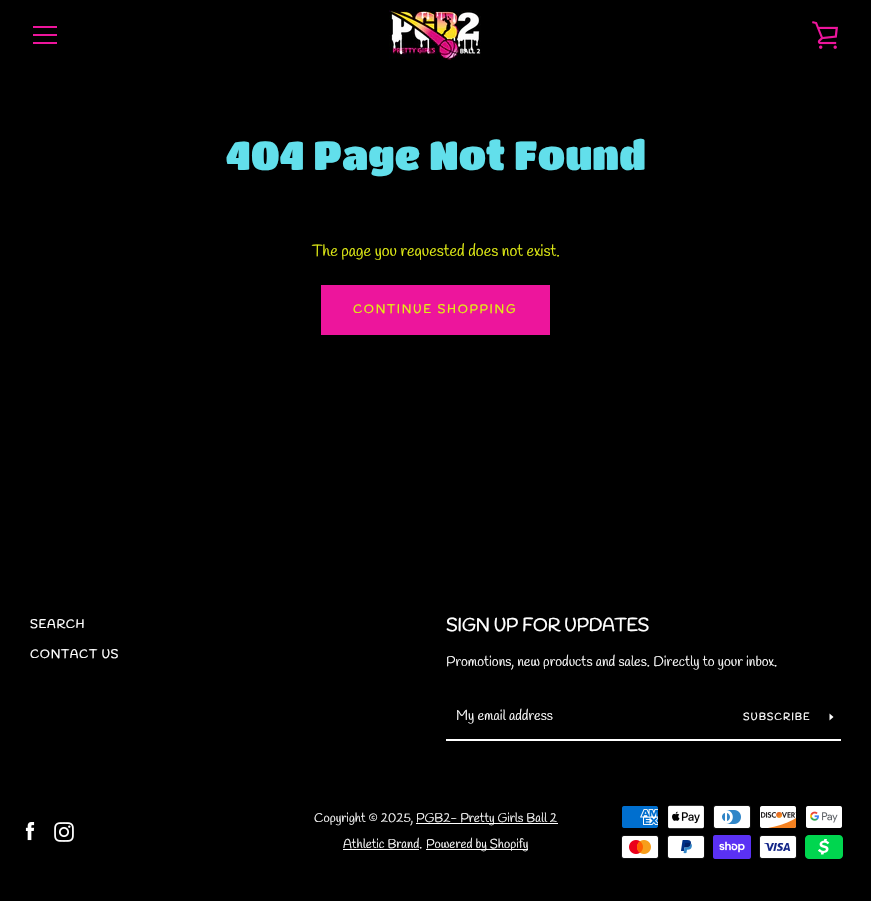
static SkFont makeFont(const char* family, int weight, float size, bool italic = false) {
  SkFontStyle style(weight, SkFontStyle::kNormal_Width,
    italic ? SkFontStyle::kItalic_Slant : SkFontStyle::kUpright_Slant);
  SkFont result(fontMgr->matchFamilyStyle(family, style), size);
  result.setSubpixel(true);
  return result;
}

static void text(SkCanvas* c, const char* s, float x, float y, const SkFont& font, SkColor color) {
  SkPaint ink(SkColor4f::FromColor(color));
  ink.setAntiAlias(true);
  c->drawString(s, x, y, font, ink);
}

static void spacedText(SkCanvas* c, const char* s, float x, float y, const SkFont& font, const SkPaint& ink, float letter, float word) {
  std::vector<SkGlyphID> glyphs(font.countText(s, strlen(s), SkTextEncoding::kUTF8));
  std::vector<float> xs(glyphs.size());
  font.textToGlyphs(s, strlen(s), SkTextEncoding::kUTF8, glyphs);
  font.getXPos(glyphs, xs, x);
  float extra = 0;
  for (size_t i = 0; i < glyphs.size(); i++) {
    xs[i] += extra;
    extra += letter + word * (glyphs[i] == font.unicharToGlyph(' '));
  }
  c->drawTextBlob(SkTextBlob::MakeFromPosHGlyphs(glyphs, xs, y, font), 0, 0, ink);
}

static void box(SkCanvas* c, float l, float t, float r, float b, SkColor color) {
  SkPaint ink(SkColor4f::FromColor(color));
  ink.setAntiAlias(true);
  c->drawRect(SkRect::MakeLTRB(l, t, r, b), ink);
}

static void picture(SkCanvas* c, const char* path, float l, float t, float r, float b) {
  auto image = SkImages::DeferredFromEncodedData(SkData::MakeFromFileName(path));
  c->drawImageRect(image, SkRect::MakeLTRB(l, t, r, b), SkSamplingOptions());
}

void draw(SkCanvas* c) {
  SkPaint paint;
  paint.setAntiAlias(true);
  c->clear(0xff000000);
  box(c, 33, 26, 57, 28, 0xffed159c);
  box(c, 33, 34, 57, 36, 0xffed159c);
  box(c, 33, 42, 57, 44, 0xffed159c);
  picture(c, "img_01.png", 389, 10, 481, 60);
  picture(c, "img_02.png", 812, 21, 838, 49);
  SkFont face1 = makeFont("Titan One", 400, 40);
  text(c, "404 Page Not Found", 226, 170, face1, 0xff62dfeb);
  SkFont face2 = makeFont("Handlee", 400, 16);
  text(c, "The page you requested does not exist.", 312, 256, face2, 0xffe2ed15);
  box(c, 321, 285, 550, 335, 0xffed159c);
  SkFont face3 = makeFont("Handlee", 700, 12);
  paint.setColor(0xffe2ed15);
  spacedText(c, "CONTINUE SHOPPING", 353, 313, face3, paint, 2, 0);
  paint.setColor(0xffffffff);
  spacedText(c, "SEARCH", 30, 628, face3, paint, 1, 0);
  spacedText(c, "CONTACT US", 30, 658, face3, paint, 1, 0);
  SkFont face4 = makeFont("Handlee", 700, 18);
  text(c, "SIGN UP FOR UPDATES", 446, 631, face4, 0xffffffff);
  SkFont face5 = makeFont("Handlee", 400, 14);
  text(c, "Promotions, new products and sales. Directly to your inbox.", 446, 666, face5, 0xffffffff);
  box(c, 446, 739, 841, 741, 0xffffffff);
  text(c, "My email address", 456, 720, face5, 0xffffffff);
  SkFont face6 = makeFont("Handlee", 700, 10);
  spacedText(c, "SUBSCRIBE", 743, 720, face6, paint, 1.25f, 0);
  c->drawPath(SkPathBuilder().moveTo(833.5f, 717).lineTo(829.5f, 720.5f).lineTo(829.5f, 713.5f).close().detach(), paint);
  picture(c, "img_03.png", 25, 822, 35, 841);
  picture(c, "img_04.png", 54, 822, 74, 842);
  SkFont face7 = makeFont("Handlee", 400, 12.75f);
  text(c, "Copyright © 2025,", 314, 822, face7, 0xffffffff);
  box(c, 416, 823, 558, 824, 0xffffffff);
  text(c, "PGB2- Pretty Girls Ball 2", 416, 822, face7, 0xffffffff);
  text(c, "Athletic Brand.", 343, 848, face7, 0xffffffff);
  box(c, 343, 849, 419, 850, 0xffffffff);
  box(c, 426, 849, 528, 850, 0xffffffff);
  text(c, "Powered by Shopify", 426, 848, face7, 0xffffffff);
  picture(c, "img_05.png", 622, 806, 658, 828);
  picture(c, "img_06.png", 668, 805, 704, 829);
  picture(c, "img_07.png", 713, 805, 751, 829);
  picture(c, "img_08.png", 760, 806, 797, 828);
  picture(c, "img_09.png", 806, 806, 842, 828);
  picture(c, "img_10.png", 621, 835, 659, 859);
  picture(c, "img_11.png", 667, 835, 705, 859);
  picture(c, "img_12.png", 713, 835, 751, 859);
  picture(c, "img_13.png", 759, 835, 797, 859);
  picture(c, "img_14.png", 805, 835, 843, 859);
}
